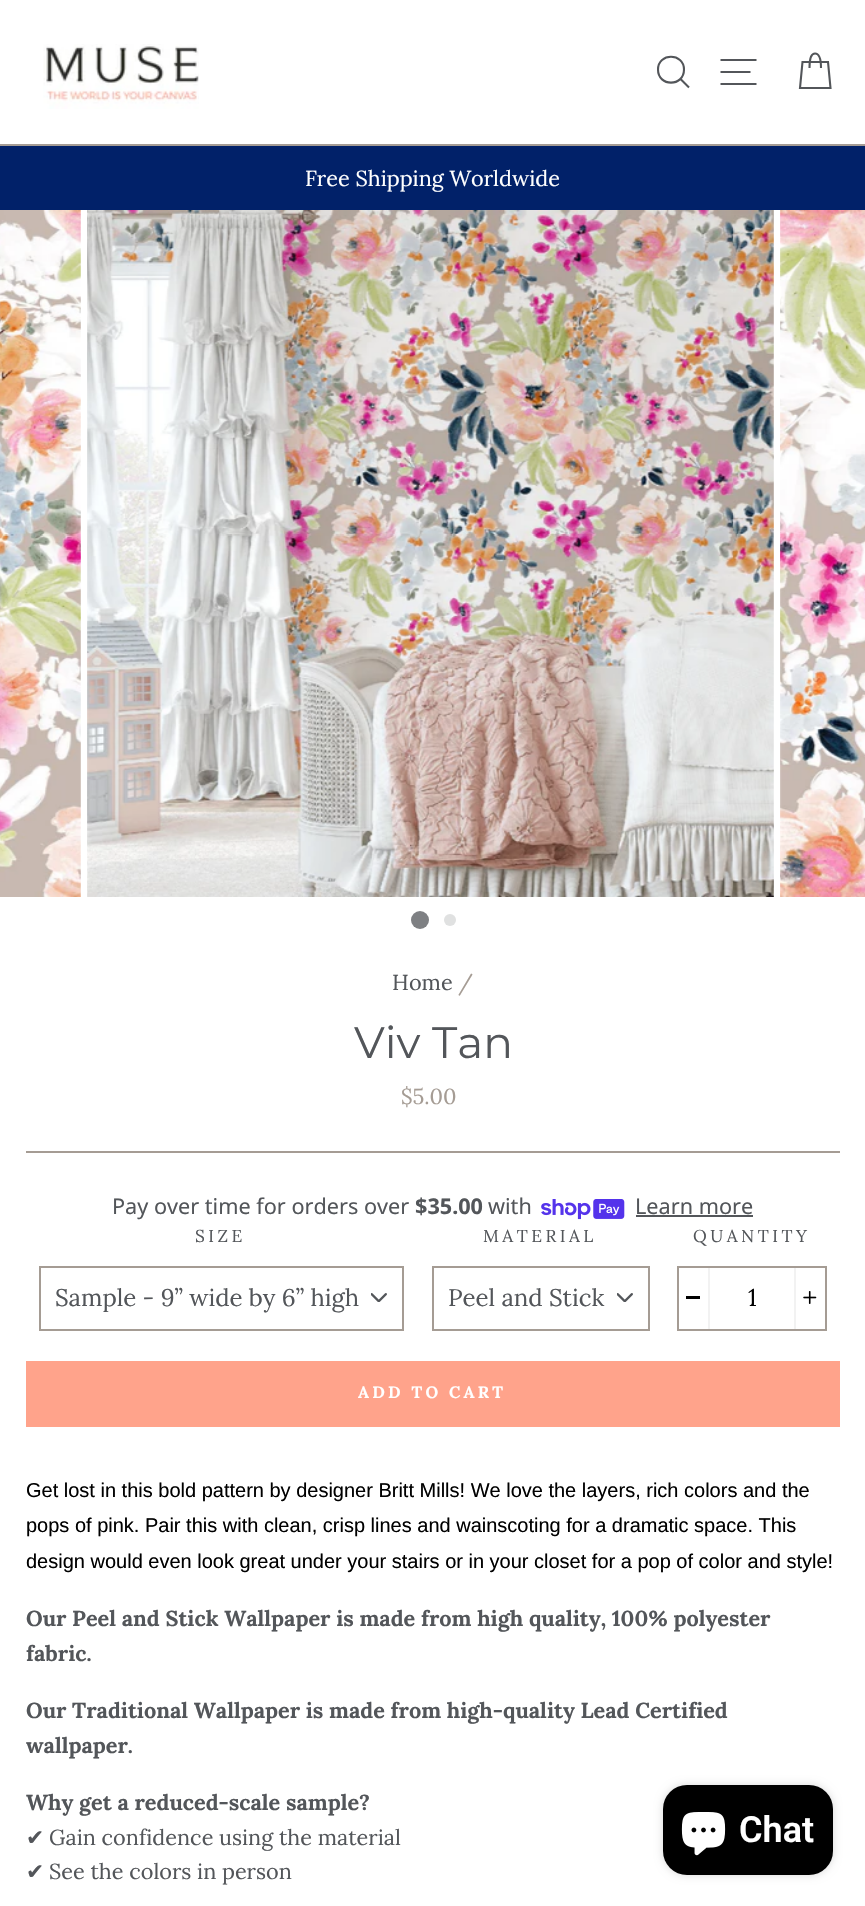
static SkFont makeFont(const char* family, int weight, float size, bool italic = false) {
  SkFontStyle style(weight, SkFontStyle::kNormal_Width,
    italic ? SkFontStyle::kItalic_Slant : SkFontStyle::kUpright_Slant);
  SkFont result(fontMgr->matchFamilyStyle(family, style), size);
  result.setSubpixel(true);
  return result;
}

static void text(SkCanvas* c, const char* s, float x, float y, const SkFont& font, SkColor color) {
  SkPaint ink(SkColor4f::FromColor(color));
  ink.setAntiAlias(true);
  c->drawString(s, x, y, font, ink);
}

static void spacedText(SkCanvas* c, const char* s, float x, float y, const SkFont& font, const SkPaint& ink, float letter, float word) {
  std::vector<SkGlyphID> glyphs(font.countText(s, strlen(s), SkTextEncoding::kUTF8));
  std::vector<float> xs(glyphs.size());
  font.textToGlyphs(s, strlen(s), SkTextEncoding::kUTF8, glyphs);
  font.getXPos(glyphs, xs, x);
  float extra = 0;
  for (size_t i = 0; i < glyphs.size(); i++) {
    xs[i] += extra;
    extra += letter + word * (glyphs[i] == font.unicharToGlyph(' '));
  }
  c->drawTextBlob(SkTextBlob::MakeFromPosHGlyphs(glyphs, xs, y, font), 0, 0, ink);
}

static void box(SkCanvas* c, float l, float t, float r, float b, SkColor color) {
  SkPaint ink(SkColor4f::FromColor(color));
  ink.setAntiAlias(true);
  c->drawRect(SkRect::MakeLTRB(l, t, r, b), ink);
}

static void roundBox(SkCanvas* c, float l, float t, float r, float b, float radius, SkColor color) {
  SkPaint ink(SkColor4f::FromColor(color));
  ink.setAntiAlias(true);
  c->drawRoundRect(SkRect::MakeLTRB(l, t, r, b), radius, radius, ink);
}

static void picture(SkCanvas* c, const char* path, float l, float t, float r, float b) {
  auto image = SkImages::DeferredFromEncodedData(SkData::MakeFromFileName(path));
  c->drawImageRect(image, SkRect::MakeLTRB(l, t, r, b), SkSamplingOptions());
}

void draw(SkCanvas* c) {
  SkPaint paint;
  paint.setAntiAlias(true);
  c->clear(0xffffffff);
  box(c, 0, 144, 865, 146, 0xffa59c94);
  picture(c, "img_01.png", 43, 44, 199, 109);
  paint.setStyle(SkPaint::kStroke_Style);
  paint.setStrokeWidth(2.1f);
  paint.setColor(0xff53565a);
  c->drawPath(SkPathBuilder().moveTo(684, 69.5f).cubicTo(684, 87, 658, 87, 658, 69.5f).cubicTo(658, 52.5f, 684, 52.5f, 684, 69.5f).close().moveTo(689, 87.5f).lineTo(680.5f, 79).detach(), paint);
  c->drawPath(SkPathBuilder().moveTo(720.5f, 60).lineTo(756.5f, 60).moveTo(720.5f, 72).lineTo(750.5f, 72).moveTo(720.5f, 84).lineTo(756.5f, 84).detach(), paint);
  c->drawPath(SkPathBuilder().moveTo(809.5f, 68).cubicTo(809.5f, 56.5f, 812, 53.5f, 815, 53.5f).cubicTo(818.5f, 53.5f, 821, 56.5f, 821, 68).moveTo(802.5f, 62).lineTo(828, 62).lineTo(830.5f, 88).lineTo(800, 88).close().detach(), paint);
  box(c, 0, 146, 865, 210, 0xff012169);
  SkFont face1 = makeFont("Lora", 400, 21.65f);
  text(c, "Free Shipping Worldwide", 305, 186, face1, 0xffffffff);
  picture(c, "img_02.png", 0, 210, 81, 897);
  picture(c, "img_03.png", 87, 210, 774, 897);
  picture(c, "img_04.png", 780, 210, 865, 897);
  paint.setStyle(SkPaint::kFill_Style);
  paint.setColor(0xff7e8083);
  c->drawCircle(420, 920, 9, paint);
  paint.setColor(0xffe0e1e1);
  c->drawCircle(450, 920, 6, paint);
  text(c, "Home", 392, 990, face1, 0xff53565a);
  text(c, "/", 458, 990, face1, 0xffa59c94);
  SkFont face2 = makeFont("Montserrat", 100, 44);
  text(c, "Viv Tan", 354, 1058, face2, 0xff53565a);
  text(c, "$5.00", 401, 1104, face1, 0xffa59c94);
  box(c, 26, 1151, 840, 1153, 0xffa59c94);
  SkFont face3 = makeFont("Noto Sans", 400, 21.65f);
  text(c, "Pay over time for orders over", 112, 1214, face3, 0xff53565a);
  SkFont face4 = makeFont("Noto Sans", 700, 21.65f);
  text(c, "$35.00", 415, 1214, face4, 0xff53565a);
  text(c, "with", 488, 1214, face3, 0xff53565a);
  picture(c, "img_05.png", 541, 1199, 625, 1220);
  text(c, "Learn more", 635, 1214, face3, 0xff53565a);
  box(c, 636, 1215, 753, 1217, 0xff53565a);
  SkFont face5 = makeFont("Lora", 400, 17.25f);
  paint.setColor(0xff53565a);
  spacedText(c, "SIZE", 195, 1242, face5, paint, 3.5f, 0);
  picture(c, "img_06.png", 371, 1293, 387, 1302);
  paint.setStyle(SkPaint::kStroke_Style);
  paint.setStrokeWidth(2);
  paint.setColor(0xffa59c94);
  c->drawRect(SkRect::MakeLTRB(40, 1267, 403, 1330), paint);
  SkFont face6 = makeFont("Lora", 400, 24);
  text(c, "Sample - 9” wide by 6” high", 55, 1306, face6, 0xff53565a);
  paint.setStyle(SkPaint::kFill_Style);
  paint.setColor(0xff53565a);
  spacedText(c, "MATERIAL", 483, 1242, face5, paint, 3.5f, 0);
  picture(c, "img_06.png", 617, 1293, 633, 1302);
  paint.setStyle(SkPaint::kStroke_Style);
  paint.setColor(0xffa59c94);
  c->drawRect(SkRect::MakeLTRB(433, 1267, 649, 1330), paint);
  text(c, "Peel and Stick", 448, 1306, face6, 0xff53565a);
  paint.setStyle(SkPaint::kFill_Style);
  paint.setColor(0xff53565a);
  spacedText(c, "QUANTITY", 693, 1242, face5, paint, 3.5f, 0);
  paint.setStyle(SkPaint::kStroke_Style);
  paint.setColor(0xffa59c94);
  c->drawRect(SkRect::MakeLTRB(678, 1267, 826, 1330), paint);
  box(c, 708, 1268, 710, 1329, 0xfff2f2f2);
  box(c, 686, 1296, 700, 1299, 0xff000000);
  text(c, "1", 748, 1306, face6, 0xff000000);
  box(c, 794, 1268, 796, 1329, 0xfff2f2f2);
  picture(c, "img_07.png", 803, 1291, 817, 1304);
  box(c, 26, 1361, 840, 1427, 0xffffa38b);
  SkFont face7 = makeFont("Lora", 700, 16.5f);
  paint.setStyle(SkPaint::kFill_Style);
  paint.setColor(0xffffffff);
  spacedText(c, "ADD TO CART", 358, 1398, face7, paint, 3.25f, 0);
  SkFont face8 = makeFont("Liberation Sans", 400, 20);
  text(c, "Get lost in this bold pattern by designer Britt Mills! We love the layers, rich colors and the", 26, 1497, face8, 0xff000000);
  text(c, "pops of pink. Pair this with clean, crisp lines and wainscoting for a dramatic space. This", 26, 1532, face8, 0xff000000);
  text(c, "design would even look great under your stairs or in your closet for a pop of color and style!", 26, 1568, face8, 0xff000000);
  SkFont face9 = makeFont("Lora", 700, 21.65f);
  text(c, "Our Peel and Stick Wallpaper is made from high quality, 100% polyester", 26, 1626, face9, 0xff53565a);
  text(c, "fabric.", 26, 1661, face9, 0xff53565a);
  text(c, "Our Traditional Wallpaper is made from high-quality Lead Certified", 26, 1718, face9, 0xff53565a);
  text(c, "wallpaper.", 26, 1753, face9, 0xff53565a);
  text(c, "Why get a reduced-scale sample?", 26, 1810, face9, 0xff53565a);
  SkFont face10 = makeFont("DejaVu Sans", 400, 21.65f);
  text(c, "✔", 26, 1845, face10, 0xff53565a);
  text(c, "Gain confidence using the material", 49, 1845, face1, 0xff53565a);
  text(c, "✔", 26, 1879, face10, 0xff53565a);
  text(c, "See the colors in person", 49, 1879, face1, 0xff53565a);
  paint.setColor(0x26000000);
  paint.setMaskFilter(SkMaskFilter::MakeBlur(kNormal_SkBlurStyle, 4));
  c->drawRoundRect(SkRect::MakeLTRB(663, 1785, 833, 1875), 24, 24, paint);
  paint.setMaskFilter(nullptr);
  roundBox(c, 663, 1785, 833, 1875, 24, 0xff000000);
  picture(c, "img_08.png", 681, 1812, 726, 1856);
  SkFont face11 = makeFont("Roboto", 600, 36);
  text(c, "Chat", 739, 1842, face11, 0xffffffff);
}
